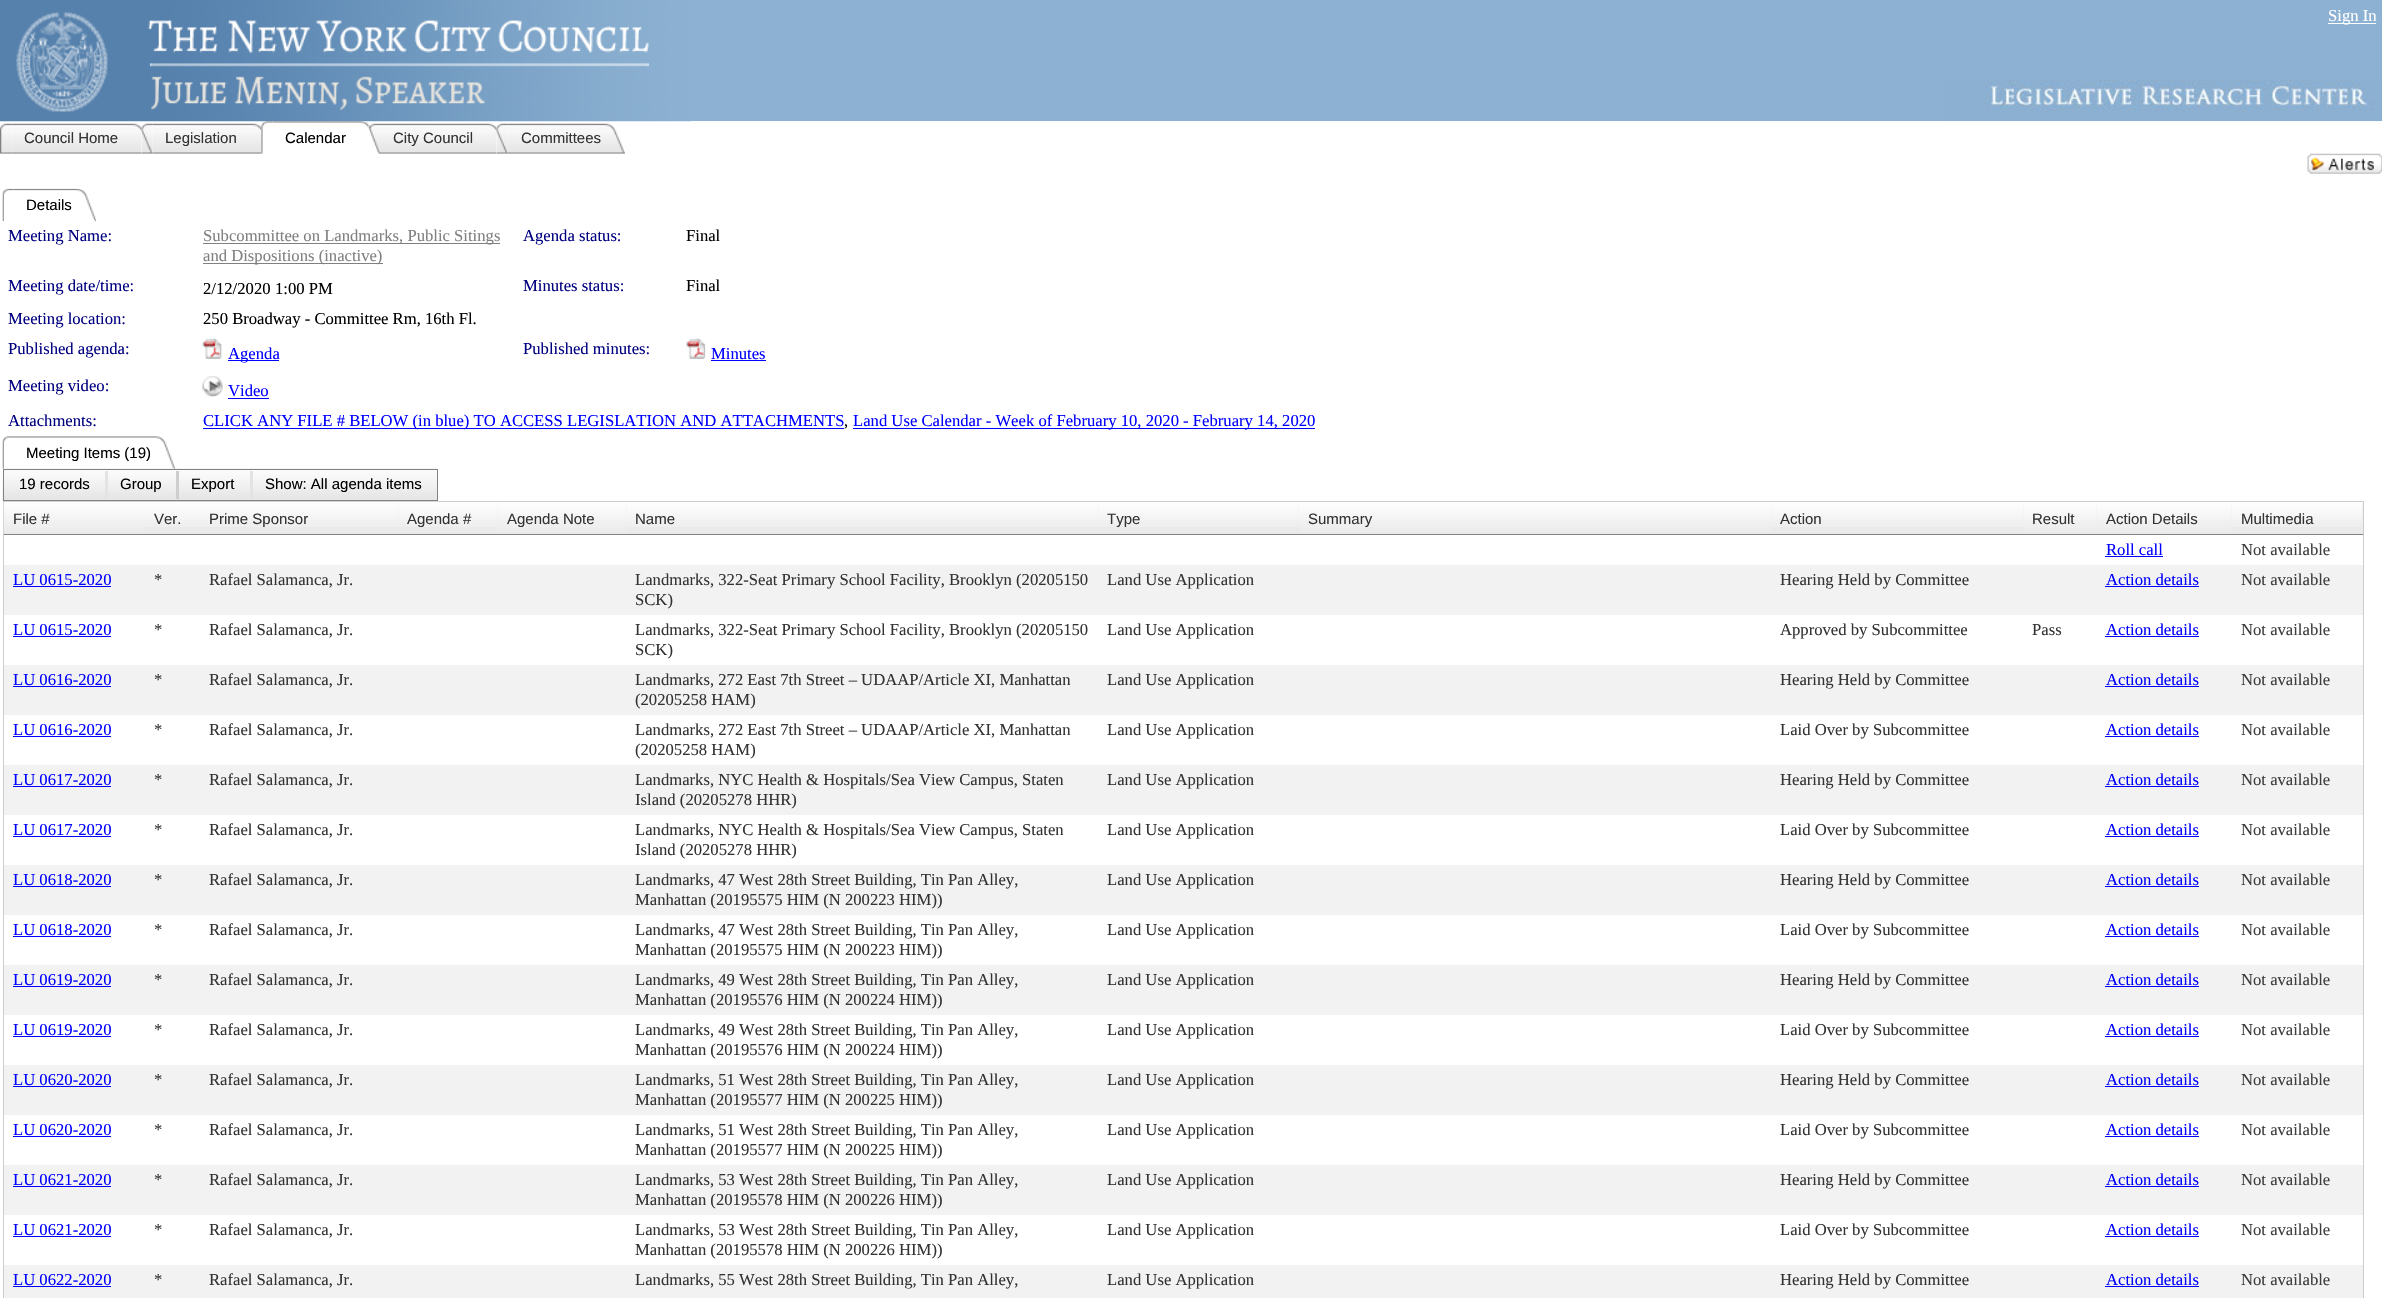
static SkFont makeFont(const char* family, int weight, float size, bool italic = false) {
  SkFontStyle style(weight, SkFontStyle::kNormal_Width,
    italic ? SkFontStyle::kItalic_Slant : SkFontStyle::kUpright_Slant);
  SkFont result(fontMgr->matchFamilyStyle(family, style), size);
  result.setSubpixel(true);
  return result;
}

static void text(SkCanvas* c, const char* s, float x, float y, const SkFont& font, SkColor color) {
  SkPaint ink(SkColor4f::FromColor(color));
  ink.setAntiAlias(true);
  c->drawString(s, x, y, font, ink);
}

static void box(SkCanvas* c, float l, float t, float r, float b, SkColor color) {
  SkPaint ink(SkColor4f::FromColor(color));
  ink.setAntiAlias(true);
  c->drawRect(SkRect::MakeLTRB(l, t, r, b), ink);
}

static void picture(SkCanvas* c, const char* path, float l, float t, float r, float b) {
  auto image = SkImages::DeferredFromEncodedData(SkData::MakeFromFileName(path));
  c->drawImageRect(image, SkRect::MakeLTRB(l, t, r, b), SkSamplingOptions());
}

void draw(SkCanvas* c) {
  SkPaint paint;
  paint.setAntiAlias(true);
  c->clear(0xffffffff);
  box(c, 691, 0, 2382, 121, 0xff8cb1d2);
  picture(c, "img_01.png", 0, 0, 692, 122);
  picture(c, "img_02.png", 1945, 80, 2382, 122);
  box(c, 2328, 23, 2376, 24, 0xffffffff);
  SkFont face1 = makeFont("Liberation Serif", 400, 16.65f);
  text(c, "Sign In", 2328, 21, face1, 0xffffffff);
  picture(c, "img_03.png", 0, 123, 12, 154);
  picture(c, "img_04.png", 11, 123, 142, 154);
  SkFont face2 = makeFont("Liberation Sans", 400, 15);
  text(c, "Council Home", 24, 143, face2, 0xff333333);
  picture(c, "img_05.png", 141, 123, 153, 154);
  picture(c, "img_06.png", 152, 123, 262, 154);
  text(c, "Legislation", 165, 143, face2, 0xff333333);
  picture(c, "img_07.png", 261, 121, 273, 154);
  picture(c, "img_08.png", 272, 121, 369, 128);
  text(c, "Calendar", 285, 143, face2, 0xff000000);
  picture(c, "img_09.png", 368, 123, 381, 154);
  picture(c, "img_10.png", 380, 123, 497, 154);
  text(c, "City Council", 393, 143, face2, 0xff333333);
  picture(c, "img_11.png", 496, 123, 508, 154);
  picture(c, "img_12.png", 507, 123, 625, 154);
  text(c, "Committees", 521, 143, face2, 0xff333333);
  picture(c, "img_13.png", 2307, 153, 2382, 174);
  picture(c, "img_14.png", 2, 188, 14, 222);
  picture(c, "img_15.png", 13, 188, 97, 222);
  text(c, "Details", 26, 210, face2, 0xff000000);
  text(c, "Meeting Name:", 8, 241, face1, 0xff000080);
  box(c, 203, 243, 500, 244, 0xff808080);
  text(c, "Subcommittee on Landmarks, Public Sitings", 203, 241, face1, 0xff808080);
  box(c, 203, 263, 383, 264, 0xff808080);
  text(c, "and Dispositions (inactive)", 203, 261, face1, 0xff808080);
  text(c, "Agenda status:", 523, 241, face1, 0xff000080);
  text(c, "Final", 686, 241, face1, 0xff000000);
  text(c, "Meeting date/time:", 8, 291, face1, 0xff000080);
  text(c, "2/12/2020", 203, 294, face1, 0xff000000);
  text(c, "1:00 PM", 275, 294, face1, 0xff000000);
  text(c, "Minutes status:", 523, 291, face1, 0xff000080);
  text(c, "Final", 686, 291, face1, 0xff000000);
  text(c, "Meeting location:", 8, 324, face1, 0xff000080);
  text(c, "250 Broadway - Committee Rm, 16th Fl.", 203, 324, face1, 0xff000000);
  text(c, "Published agenda:", 8, 354, face1, 0xff000080);
  picture(c, "img_16.png", 202, 338, 222, 359);
  box(c, 228, 360, 279, 361, 0xff0000ff);
  text(c, "Agenda", 228, 359, face1, 0xff0000ff);
  text(c, "Published minutes:", 523, 354, face1, 0xff000080);
  picture(c, "img_17.png", 686, 338, 706, 359);
  text(c, "Minutes", 711, 359, face1, 0xff0000ff);
  box(c, 711, 360, 766, 361, 0xff0000ff);
  text(c, "Meeting video:", 8, 391, face1, 0xff000080);
  picture(c, "img_18.png", 202, 376, 223, 397);
  text(c, "Video", 228, 396, face1, 0xff0000ff);
  box(c, 228, 398, 269, 399, 0xff0000ff);
  text(c, "Attachments:", 8, 426, face1, 0xff000080);
  box(c, 203, 428, 844, 429, 0xff0000ff);
  text(c, "CLICK ANY FILE # BELOW (in blue) TO ACCESS LEGISLATION AND ATTACHMENTS", 203, 426, face1, 0xff0000ff);
  text(c, ",", 844, 426, face1, 0xff000000);
  box(c, 853, 428, 1315, 429, 0xff0000ff);
  text(c, "Land Use Calendar - Week of February 10, 2020 - February 14, 2020", 853, 426, face1, 0xff0000ff);
  picture(c, "img_19.png", 2, 436, 14, 469);
  picture(c, "img_20.png", 13, 436, 175, 469);
  text(c, "Meeting Items (19)", 26, 458, face2, 0xff000000);
  paint.setStyle(SkPaint::kStroke_Style);
  paint.setStrokeWidth(1);
  paint.setColor(0xffcccccc);
  c->drawRect(SkRect::MakeLTRB(3.5f, 501.5f, 2363.5f, 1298.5f), paint);
  picture(c, "img_21.png", 2, 468, 438, 502);
  paint.setColor(0xff828282);
  c->drawRect(SkRect::MakeLTRB(3.5f, 469.5f, 437.5f, 500.5f), paint);
  text(c, "19 records", 19, 489, face2, 0xff000000);
  box(c, 105, 471, 108, 499, 0xffe3e3e3);
  text(c, "Group", 120, 489, face2, 0xff000000);
  box(c, 176, 471, 179, 499, 0xffcecece);
  text(c, "Export", 191, 489, face2, 0xff000000);
  box(c, 250, 471, 253, 499, 0xffe3e3e3);
  text(c, "Show: All agenda items", 265, 489, face2, 0xff000000);
  box(c, 4, 533, 145, 534, 0xffeaeaea);
  picture(c, "img_22.png", 3, 503, 145, 534);
  box(c, 4, 534, 2363, 535, 0xff828282);
  text(c, "File #", 13, 524, face2, 0xff333333);
  box(c, 145, 527, 200, 534, 0xffeaeaea);
  picture(c, "img_23.png", 145, 503, 200, 527);
  text(c, "Ver.", 154, 524, face2, 0xff333333);
  box(c, 200, 503, 498, 534, 0xffeaeaea);
  picture(c, "img_24.png", 200, 503, 399, 527);
  text(c, "Prime Sponsor", 209, 524, face2, 0xff333333);
  picture(c, "img_25.png", 399, 503, 498, 527);
  text(c, "Agenda #", 407, 524, face2, 0xff333333);
  box(c, 498, 533, 626, 534, 0xffeaeaea);
  picture(c, "img_26.png", 497, 503, 626, 534);
  text(c, "Agenda Note", 507, 524, face2, 0xff333333);
  box(c, 626, 503, 1299, 534, 0xffeaeaea);
  picture(c, "img_27.png", 626, 503, 1099, 527);
  text(c, "Name", 635, 524, face2, 0xff333333);
  picture(c, "img_28.png", 1099, 503, 1299, 527);
  text(c, "Type", 1107, 524, face2, 0xff333333);
  box(c, 1299, 533, 1771, 534, 0xffeaeaea);
  picture(c, "img_29.png", 1299, 503, 1771, 534);
  text(c, "Summary", 1308, 524, face2, 0xff333333);
  box(c, 1771, 503, 2024, 534, 0xffeaeaea);
  picture(c, "img_30.png", 1771, 503, 2024, 527);
  text(c, "Action", 1780, 524, face2, 0xff333333);
  box(c, 2024, 533, 2096, 534, 0xffeaeaea);
  picture(c, "img_31.png", 2024, 503, 2096, 534);
  text(c, "Result", 2032, 524, face2, 0xff333333);
  box(c, 2096, 503, 2363, 534, 0xffeaeaea);
  picture(c, "img_32.png", 2096, 503, 2231, 534);
  text(c, "Action Details", 2106, 524, face2, 0xff333333);
  picture(c, "img_33.png", 2231, 503, 2363, 527);
  text(c, "Multimedia", 2241, 524, face2, 0xff333333);
  text(c, "Roll call", 2106, 555, face1, 0xff0000ff);
  box(c, 2105, 556, 2163, 557, 0xff0000ff);
  text(c, "Not available", 2241, 555, face1, 0xff3d3d3d);
  box(c, 4, 565, 2363, 615, 0xfff2f2f2);
  text(c, "LU 0615-2020", 13, 585, face1, 0xff0000ff);
  box(c, 13, 586, 111, 587, 0xff0000ff);
  text(c, "*", 154, 585, face1, 0xff333333);
  text(c, "Rafael Salamanca, Jr.", 209, 585, face1, 0xff333333);
  text(c, "Landmarks, 322-Seat Primary School Facility, Brooklyn (20205150", 635, 585, face1, 0xff333333);
  text(c, "SCK)", 635, 605, face1, 0xff333333);
  text(c, "Land Use Application", 1107, 585, face1, 0xff333333);
  text(c, "Hearing Held by Committee", 1780, 585, face1, 0xff333333);
  text(c, "Action details", 2106, 585, face1, 0xff0000ff);
  box(c, 2105, 586, 2199, 587, 0xff0000ff);
  text(c, "Not available", 2241, 585, face1, 0xff3d3d3d);
  text(c, "LU 0615-2020", 13, 635, face1, 0xff0000ff);
  box(c, 13, 636, 111, 637, 0xff0000ff);
  text(c, "*", 154, 635, face1, 0xff333333);
  text(c, "Rafael Salamanca, Jr.", 209, 635, face1, 0xff333333);
  text(c, "Landmarks, 322-Seat Primary School Facility, Brooklyn (20205150", 635, 635, face1, 0xff333333);
  text(c, "SCK)", 635, 655, face1, 0xff333333);
  text(c, "Land Use Application", 1107, 635, face1, 0xff333333);
  text(c, "Approved by Subcommittee", 1780, 635, face1, 0xff333333);
  text(c, "Pass", 2032, 635, face1, 0xff333333);
  text(c, "Action details", 2106, 635, face1, 0xff0000ff);
  box(c, 2105, 636, 2199, 637, 0xff0000ff);
  text(c, "Not available", 2241, 635, face1, 0xff3d3d3d);
  box(c, 4, 665, 2363, 715, 0xfff2f2f2);
  text(c, "LU 0616-2020", 13, 685, face1, 0xff0000ff);
  box(c, 13, 686, 111, 687, 0xff0000ff);
  text(c, "*", 154, 685, face1, 0xff333333);
  text(c, "Rafael Salamanca, Jr.", 209, 685, face1, 0xff333333);
  text(c, "Landmarks, 272 East 7th Street – UDAAP/Article XI, Manhattan", 635, 685, face1, 0xff333333);
  text(c, "(20205258 HAM)", 635, 705, face1, 0xff333333);
  text(c, "Land Use Application", 1107, 685, face1, 0xff333333);
  text(c, "Hearing Held by Committee", 1780, 685, face1, 0xff333333);
  text(c, "Action details", 2106, 685, face1, 0xff0000ff);
  box(c, 2105, 686, 2199, 687, 0xff0000ff);
  text(c, "Not available", 2241, 685, face1, 0xff3d3d3d);
  text(c, "LU 0616-2020", 13, 735, face1, 0xff0000ff);
  box(c, 13, 736, 111, 737, 0xff0000ff);
  text(c, "*", 154, 735, face1, 0xff333333);
  text(c, "Rafael Salamanca, Jr.", 209, 735, face1, 0xff333333);
  text(c, "Landmarks, 272 East 7th Street – UDAAP/Article XI, Manhattan", 635, 735, face1, 0xff333333);
  text(c, "(20205258 HAM)", 635, 755, face1, 0xff333333);
  text(c, "Land Use Application", 1107, 735, face1, 0xff333333);
  text(c, "Laid Over by Subcommittee", 1780, 735, face1, 0xff333333);
  text(c, "Action details", 2106, 735, face1, 0xff0000ff);
  box(c, 2105, 736, 2199, 737, 0xff0000ff);
  text(c, "Not available", 2241, 735, face1, 0xff3d3d3d);
  box(c, 4, 765, 2363, 815, 0xfff2f2f2);
  text(c, "LU 0617-2020", 13, 785, face1, 0xff0000ff);
  box(c, 13, 786, 111, 787, 0xff0000ff);
  text(c, "*", 154, 785, face1, 0xff333333);
  text(c, "Rafael Salamanca, Jr.", 209, 785, face1, 0xff333333);
  text(c, "Landmarks, NYC Health & Hospitals/Sea View Campus, Staten", 635, 785, face1, 0xff333333);
  text(c, "Island (20205278 HHR)", 635, 805, face1, 0xff333333);
  text(c, "Land Use Application", 1107, 785, face1, 0xff333333);
  text(c, "Hearing Held by Committee", 1780, 785, face1, 0xff333333);
  text(c, "Action details", 2106, 785, face1, 0xff0000ff);
  box(c, 2105, 786, 2199, 787, 0xff0000ff);
  text(c, "Not available", 2241, 785, face1, 0xff3d3d3d);
  text(c, "LU 0617-2020", 13, 835, face1, 0xff0000ff);
  box(c, 13, 836, 111, 837, 0xff0000ff);
  text(c, "*", 154, 835, face1, 0xff333333);
  text(c, "Rafael Salamanca, Jr.", 209, 835, face1, 0xff333333);
  text(c, "Landmarks, NYC Health & Hospitals/Sea View Campus, Staten", 635, 835, face1, 0xff333333);
  text(c, "Island (20205278 HHR)", 635, 855, face1, 0xff333333);
  text(c, "Land Use Application", 1107, 835, face1, 0xff333333);
  text(c, "Laid Over by Subcommittee", 1780, 835, face1, 0xff333333);
  text(c, "Action details", 2106, 835, face1, 0xff0000ff);
  box(c, 2105, 836, 2199, 837, 0xff0000ff);
  text(c, "Not available", 2241, 835, face1, 0xff3d3d3d);
  box(c, 4, 865, 2363, 915, 0xfff2f2f2);
  text(c, "LU 0618-2020", 13, 885, face1, 0xff0000ff);
  box(c, 13, 886, 111, 887, 0xff0000ff);
  text(c, "*", 154, 885, face1, 0xff333333);
  text(c, "Rafael Salamanca, Jr.", 209, 885, face1, 0xff333333);
  text(c, "Landmarks, 47 West 28th Street Building, Tin Pan Alley,", 635, 885, face1, 0xff333333);
  text(c, "Manhattan (20195575 HIM (N 200223 HIM))", 635, 905, face1, 0xff333333);
  text(c, "Land Use Application", 1107, 885, face1, 0xff333333);
  text(c, "Hearing Held by Committee", 1780, 885, face1, 0xff333333);
  text(c, "Action details", 2106, 885, face1, 0xff0000ff);
  box(c, 2105, 886, 2199, 887, 0xff0000ff);
  text(c, "Not available", 2241, 885, face1, 0xff3d3d3d);
  text(c, "LU 0618-2020", 13, 935, face1, 0xff0000ff);
  box(c, 13, 936, 111, 937, 0xff0000ff);
  text(c, "*", 154, 935, face1, 0xff333333);
  text(c, "Rafael Salamanca, Jr.", 209, 935, face1, 0xff333333);
  text(c, "Landmarks, 47 West 28th Street Building, Tin Pan Alley,", 635, 935, face1, 0xff333333);
  text(c, "Manhattan (20195575 HIM (N 200223 HIM))", 635, 955, face1, 0xff333333);
  text(c, "Land Use Application", 1107, 935, face1, 0xff333333);
  text(c, "Laid Over by Subcommittee", 1780, 935, face1, 0xff333333);
  text(c, "Action details", 2106, 935, face1, 0xff0000ff);
  box(c, 2105, 936, 2199, 937, 0xff0000ff);
  text(c, "Not available", 2241, 935, face1, 0xff3d3d3d);
  box(c, 4, 965, 2363, 1015, 0xfff2f2f2);
  text(c, "LU 0619-2020", 13, 985, face1, 0xff0000ff);
  box(c, 13, 986, 111, 987, 0xff0000ff);
  text(c, "*", 154, 985, face1, 0xff333333);
  text(c, "Rafael Salamanca, Jr.", 209, 985, face1, 0xff333333);
  text(c, "Landmarks, 49 West 28th Street Building, Tin Pan Alley,", 635, 985, face1, 0xff333333);
  text(c, "Manhattan (20195576 HIM (N 200224 HIM))", 635, 1005, face1, 0xff333333);
  text(c, "Land Use Application", 1107, 985, face1, 0xff333333);
  text(c, "Hearing Held by Committee", 1780, 985, face1, 0xff333333);
  text(c, "Action details", 2106, 985, face1, 0xff0000ff);
  box(c, 2105, 986, 2199, 987, 0xff0000ff);
  text(c, "Not available", 2241, 985, face1, 0xff3d3d3d);
  text(c, "LU 0619-2020", 13, 1035, face1, 0xff0000ff);
  box(c, 13, 1036, 111, 1037, 0xff0000ff);
  text(c, "*", 154, 1035, face1, 0xff333333);
  text(c, "Rafael Salamanca, Jr.", 209, 1035, face1, 0xff333333);
  text(c, "Landmarks, 49 West 28th Street Building, Tin Pan Alley,", 635, 1035, face1, 0xff333333);
  text(c, "Manhattan (20195576 HIM (N 200224 HIM))", 635, 1055, face1, 0xff333333);
  text(c, "Land Use Application", 1107, 1035, face1, 0xff333333);
  text(c, "Laid Over by Subcommittee", 1780, 1035, face1, 0xff333333);
  text(c, "Action details", 2106, 1035, face1, 0xff0000ff);
  box(c, 2105, 1036, 2199, 1037, 0xff0000ff);
  text(c, "Not available", 2241, 1035, face1, 0xff3d3d3d);
  box(c, 4, 1065, 2363, 1115, 0xfff2f2f2);
  text(c, "LU 0620-2020", 13, 1085, face1, 0xff0000ff);
  box(c, 13, 1086, 111, 1087, 0xff0000ff);
  text(c, "*", 154, 1085, face1, 0xff333333);
  text(c, "Rafael Salamanca, Jr.", 209, 1085, face1, 0xff333333);
  text(c, "Landmarks, 51 West 28th Street Building, Tin Pan Alley,", 635, 1085, face1, 0xff333333);
  text(c, "Manhattan (20195577 HIM (N 200225 HIM))", 635, 1105, face1, 0xff333333);
  text(c, "Land Use Application", 1107, 1085, face1, 0xff333333);
  text(c, "Hearing Held by Committee", 1780, 1085, face1, 0xff333333);
  text(c, "Action details", 2106, 1085, face1, 0xff0000ff);
  box(c, 2105, 1086, 2199, 1087, 0xff0000ff);
  text(c, "Not available", 2241, 1085, face1, 0xff3d3d3d);
  text(c, "LU 0620-2020", 13, 1135, face1, 0xff0000ff);
  box(c, 13, 1136, 111, 1137, 0xff0000ff);
  text(c, "*", 154, 1135, face1, 0xff333333);
  text(c, "Rafael Salamanca, Jr.", 209, 1135, face1, 0xff333333);
  text(c, "Landmarks, 51 West 28th Street Building, Tin Pan Alley,", 635, 1135, face1, 0xff333333);
  text(c, "Manhattan (20195577 HIM (N 200225 HIM))", 635, 1155, face1, 0xff333333);
  text(c, "Land Use Application", 1107, 1135, face1, 0xff333333);
  text(c, "Laid Over by Subcommittee", 1780, 1135, face1, 0xff333333);
  text(c, "Action details", 2106, 1135, face1, 0xff0000ff);
  box(c, 2105, 1136, 2199, 1137, 0xff0000ff);
  text(c, "Not available", 2241, 1135, face1, 0xff3d3d3d);
  box(c, 4, 1165, 2363, 1215, 0xfff2f2f2);
  text(c, "LU 0621-2020", 13, 1185, face1, 0xff0000ff);
  box(c, 13, 1186, 111, 1187, 0xff0000ff);
  text(c, "*", 154, 1185, face1, 0xff333333);
  text(c, "Rafael Salamanca, Jr.", 209, 1185, face1, 0xff333333);
  text(c, "Landmarks, 53 West 28th Street Building, Tin Pan Alley,", 635, 1185, face1, 0xff333333);
  text(c, "Manhattan (20195578 HIM (N 200226 HIM))", 635, 1205, face1, 0xff333333);
  text(c, "Land Use Application", 1107, 1185, face1, 0xff333333);
  text(c, "Hearing Held by Committee", 1780, 1185, face1, 0xff333333);
  text(c, "Action details", 2106, 1185, face1, 0xff0000ff);
  box(c, 2105, 1186, 2199, 1187, 0xff0000ff);
  text(c, "Not available", 2241, 1185, face1, 0xff3d3d3d);
  text(c, "LU 0621-2020", 13, 1235, face1, 0xff0000ff);
  box(c, 13, 1236, 111, 1237, 0xff0000ff);
  text(c, "*", 154, 1235, face1, 0xff333333);
  text(c, "Rafael Salamanca, Jr.", 209, 1235, face1, 0xff333333);
  text(c, "Landmarks, 53 West 28th Street Building, Tin Pan Alley,", 635, 1235, face1, 0xff333333);
  text(c, "Manhattan (20195578 HIM (N 200226 HIM))", 635, 1255, face1, 0xff333333);
  text(c, "Land Use Application", 1107, 1235, face1, 0xff333333);
  text(c, "Laid Over by Subcommittee", 1780, 1235, face1, 0xff333333);
  text(c, "Action details", 2106, 1235, face1, 0xff0000ff);
  box(c, 2105, 1236, 2199, 1237, 0xff0000ff);
  text(c, "Not available", 2241, 1235, face1, 0xff3d3d3d);
  box(c, 4, 1265, 2363, 1298, 0xfff2f2f2);
  text(c, "LU 0622-2020", 13, 1285, face1, 0xff0000ff);
  box(c, 13, 1286, 111, 1287, 0xff0000ff);
  text(c, "*", 154, 1285, face1, 0xff333333);
  text(c, "Rafael Salamanca, Jr.", 209, 1285, face1, 0xff333333);
  text(c, "Landmarks, 55 West 28th Street Building, Tin Pan Alley,", 635, 1285, face1, 0xff333333);
  text(c, "Land Use Application", 1107, 1285, face1, 0xff333333);
  text(c, "Hearing Held by Committee", 1780, 1285, face1, 0xff333333);
  text(c, "Action details", 2106, 1285, face1, 0xff0000ff);
  box(c, 2105, 1286, 2199, 1287, 0xff0000ff);
  text(c, "Not available", 2241, 1285, face1, 0xff3d3d3d);
}
